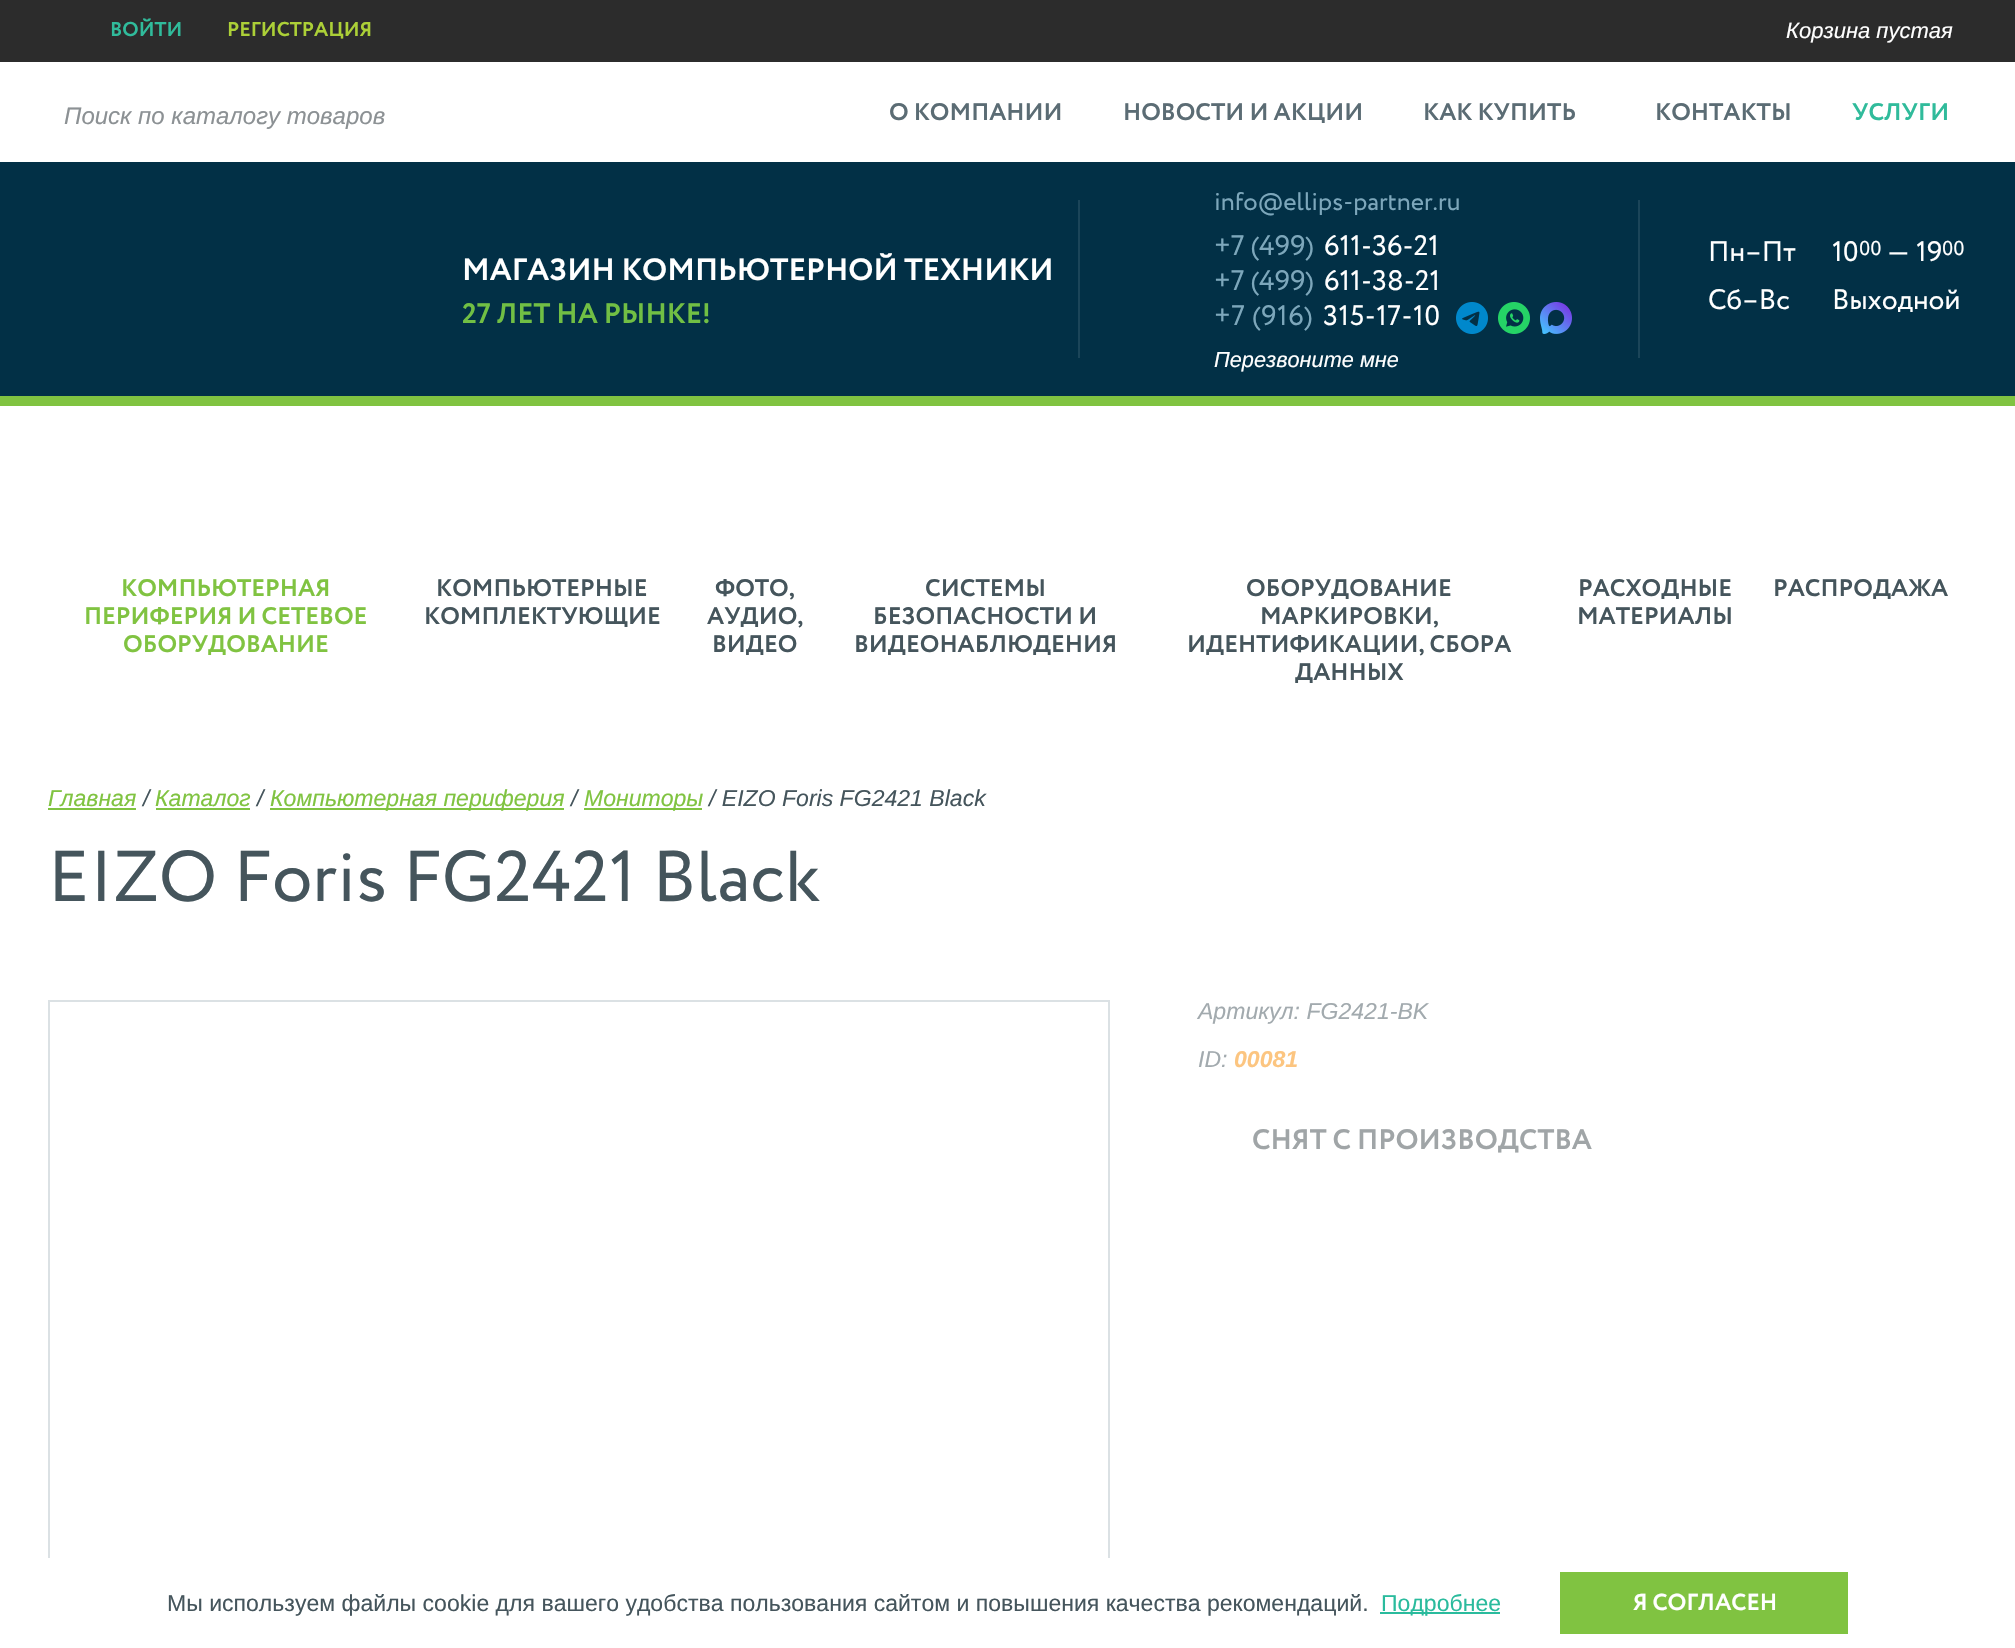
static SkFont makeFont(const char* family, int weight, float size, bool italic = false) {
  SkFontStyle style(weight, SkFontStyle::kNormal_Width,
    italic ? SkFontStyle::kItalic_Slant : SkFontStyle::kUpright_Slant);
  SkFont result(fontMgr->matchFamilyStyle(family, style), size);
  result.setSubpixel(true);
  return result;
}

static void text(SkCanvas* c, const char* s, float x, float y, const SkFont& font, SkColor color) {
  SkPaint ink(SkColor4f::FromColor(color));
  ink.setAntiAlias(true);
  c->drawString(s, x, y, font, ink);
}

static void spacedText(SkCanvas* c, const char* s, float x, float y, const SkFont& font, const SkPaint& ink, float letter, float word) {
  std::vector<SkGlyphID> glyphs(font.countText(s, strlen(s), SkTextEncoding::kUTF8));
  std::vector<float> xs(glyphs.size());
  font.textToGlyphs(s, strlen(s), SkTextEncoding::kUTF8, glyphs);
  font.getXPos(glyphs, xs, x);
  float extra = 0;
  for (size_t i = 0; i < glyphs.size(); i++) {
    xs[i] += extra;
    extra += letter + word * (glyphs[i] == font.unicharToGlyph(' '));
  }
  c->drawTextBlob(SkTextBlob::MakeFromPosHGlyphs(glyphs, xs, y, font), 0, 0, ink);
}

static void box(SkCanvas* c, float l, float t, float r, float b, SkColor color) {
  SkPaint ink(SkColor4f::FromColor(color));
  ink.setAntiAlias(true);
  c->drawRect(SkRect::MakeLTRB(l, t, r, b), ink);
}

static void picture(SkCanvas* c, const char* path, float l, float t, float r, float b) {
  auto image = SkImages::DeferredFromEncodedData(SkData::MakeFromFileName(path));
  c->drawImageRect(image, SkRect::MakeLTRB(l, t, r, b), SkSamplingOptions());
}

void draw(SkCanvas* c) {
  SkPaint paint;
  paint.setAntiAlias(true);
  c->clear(0xffffffff);
  box(c, 0, 0, 2015, 62, 0xff2c2c2c);
  SkFont face1 = makeFont("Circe", 700, 20);
  text(c, "ВОЙТИ", 110, 36, face1, 0xff30bb9b);
  text(c, "РЕГИСТРАЦИЯ", 227, 36, face1, 0xffacd037);
  SkFont face2 = makeFont("Liberation Sans", 400, 22, true);
  text(c, "Корзина пустая", 1786, 38, face2, 0xffffffff);
  SkFont face3 = makeFont("Liberation Sans", 400, 24, true);
  text(c, "Поиск по каталогу товаров", 64, 124, face3, 0xff8c9194);
  SkFont face4 = makeFont("Circe", 700, 24);
  text(c, "О КОМПАНИИ", 889, 120, face4, 0xff5b6c74);
  text(c, "НОВОСТИ И АКЦИИ", 1123, 120, face4, 0xff5b6c74);
  text(c, "КАК КУПИТЬ", 1423, 120, face4, 0xff5b6c74);
  text(c, "КОНТАКТЫ", 1655, 120, face4, 0xff5b6c74);
  text(c, "УСЛУГИ", 1852, 120, face4, 0xff30bb9b);
  box(c, 0, 162, 2015, 396, 0xff023046);
  SkFont face5 = makeFont("Circe", 700, 30.75f);
  text(c, "МАГАЗИН КОМПЬЮТЕРНОЙ ТЕХНИКИ", 462, 280, face5, 0xffffffff);
  SkFont face6 = makeFont("Circe", 700, 28.2f);
  text(c, "27 ЛЕТ НА РЫНКЕ!", 462, 323, face6, 0xff71bf44);
  box(c, 1078, 200, 1080, 358, 0xff1b4559);
  SkFont face7 = makeFont("Circe", 400, 25.5f);
  text(c, "info@ellips-partner.ru", 1214, 210, face7, 0xff7da7bb);
  box(c, 1638, 200, 1640, 358, 0xff1b4559);
  SkFont face8 = makeFont("Circe", 400, 28.2f);
  text(c, "+7 (499)", 1214, 255, face8, 0xff7da7bb);
  text(c, "611-36-21", 1324, 255, face8, 0xffffffff);
  text(c, "+7 (499)", 1214, 290, face8, 0xff7da7bb);
  text(c, "611-38-21", 1324, 290, face8, 0xffffffff);
  paint.setColor(0xff7da7bb);
  spacedText(c, "+7 (916)", 1214, 325, face8, paint, 0.5f, 0);
  paint.setColor(0xffffffff);
  spacedText(c, "315-17-10", 1323, 325, face8, paint, 0.5f, 0);
  picture(c, "img_01.png", 1456, 302, 1488, 334);
  picture(c, "img_02.png", 1498, 302, 1530, 334);
  picture(c, "img_03.png", 1540, 302, 1572, 334);
  SkFont face9 = makeFont("Liberation Sans", 400, 21.75f, true);
  text(c, "Перезвоните мне", 1214, 367, face9, 0xffffffff);
  text(c, "Пн–Пт", 1708, 261, face8, 0xffffffff);
  text(c, "10", 1832, 261, face8, 0xffffffff);
  SkFont face10 = makeFont("Circe", 400, 20);
  text(c, "00", 1859, 255, face10, 0xffffffff);
  text(c, "— 19", 1887, 261, face8, 0xffffffff);
  text(c, "00", 1942, 255, face10, 0xffffffff);
  text(c, "Сб–Вс", 1708, 309, face8, 0xffffffff);
  text(c, "Выходной", 1832, 309, face8, 0xffffffff);
  box(c, 0, 396, 2015, 406, 0xff80c341);
  text(c, "КОМПЬЮТЕРНАЯ", 121, 596, face4, 0xff80c341);
  text(c, "ПЕРИФЕРИЯ И СЕТЕВОЕ", 84, 624, face4, 0xff80c341);
  text(c, "ОБОРУДОВАНИЕ", 123, 652, face4, 0xff80c341);
  text(c, "КОМПЬЮТЕРНЫЕ", 436, 596, face4, 0xff45555c);
  text(c, "КОМПЛЕКТУЮЩИЕ", 424, 624, face4, 0xff45555c);
  text(c, "ФОТО,", 715, 596, face4, 0xff45555c);
  text(c, "АУДИО,", 707, 624, face4, 0xff45555c);
  text(c, "ВИДЕО", 712, 652, face4, 0xff45555c);
  text(c, "СИСТЕМЫ", 925, 596, face4, 0xff45555c);
  text(c, "БЕЗОПАСНОСТИ И", 873, 624, face4, 0xff45555c);
  text(c, "ВИДЕОНАБЛЮДЕНИЯ", 854, 652, face4, 0xff45555c);
  text(c, "ОБОРУДОВАНИЕ", 1246, 596, face4, 0xff45555c);
  text(c, "МАРКИРОВКИ,", 1260, 624, face4, 0xff45555c);
  text(c, "ИДЕНТИФИКАЦИИ, СБОРА", 1187, 652, face4, 0xff45555c);
  text(c, "ДАННЫХ", 1295, 680, face4, 0xff45555c);
  text(c, "РАСХОДНЫЕ", 1578, 596, face4, 0xff45555c);
  text(c, "МАТЕРИАЛЫ", 1577, 624, face4, 0xff45555c);
  text(c, "РАСПРОДАЖА", 1773, 596, face4, 0xff45555c);
  SkFont face11 = makeFont("Liberation Sans", 400, 23.05f, true);
  text(c, "Главная", 48, 806, face11, 0xff80c341);
  box(c, 48, 808, 136, 810, 0xff80c341);
  text(c, "/", 143, 806, face11, 0xff45555c);
  text(c, "Каталог", 155, 806, face11, 0xff80c341);
  box(c, 156, 808, 250, 810, 0xff80c341);
  text(c, "/", 257, 806, face11, 0xff45555c);
  box(c, 270, 808, 564, 810, 0xff80c341);
  text(c, "Компьютерная периферия", 270, 806, face11, 0xff80c341);
  text(c, "/", 571, 806, face11, 0xff45555c);
  box(c, 584, 808, 702, 810, 0xff80c341);
  text(c, "Мониторы", 584, 806, face11, 0xff80c341);
  text(c, "/ EIZO Foris FG2421 Black", 709, 806, face11, 0xff45555c);
  SkFont face12 = makeFont("Circe", 400, 71.75f);
  text(c, "EIZO Foris FG2421 Black", 48, 901, face12, 0xff45555c);
  paint.setStyle(SkPaint::kStroke_Style);
  paint.setStrokeWidth(2);
  paint.setColor(0xffdbe1e4);
  c->drawRect(SkRect::MakeLTRB(49, 1001, 1109, 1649), paint);
  text(c, "Артикул: FG2421-BK", 1198, 1019, face11, 0xffa2aaae);
  text(c, "ID:", 1198, 1067, face11, 0xffa2aaae);
  SkFont face13 = makeFont("Liberation Sans", 700, 23.05f, true);
  text(c, "00081", 1234, 1067, face13, 0xfffcc580);
  text(c, "СНЯТ С ПРОИЗВОДСТВА", 1252, 1149, face6, 0xffa0a5a7);
  box(c, 48, 1558, 1110, 1648, 0xffffffff);
  SkFont face14 = makeFont("Liberation Sans", 400, 23.05f);
  text(c, "Мы используем файлы cookie для вашего удобства пользования сайтом и повышения качества рекомендаций.", 167, 1611, face14, 0xff45555c);
  box(c, 1380, 1612, 1500, 1614, 0xff2abb9d);
  text(c, "Подробнее", 1381, 1611, face14, 0xff2abb9d);
  box(c, 1560, 1572, 1848, 1634, 0xff80c341);
  SkFont face15 = makeFont("Circe", 700, 23.05f);
  text(c, "Я СОГЛАСЕН", 1633, 1610, face15, 0xffffffff);
}
